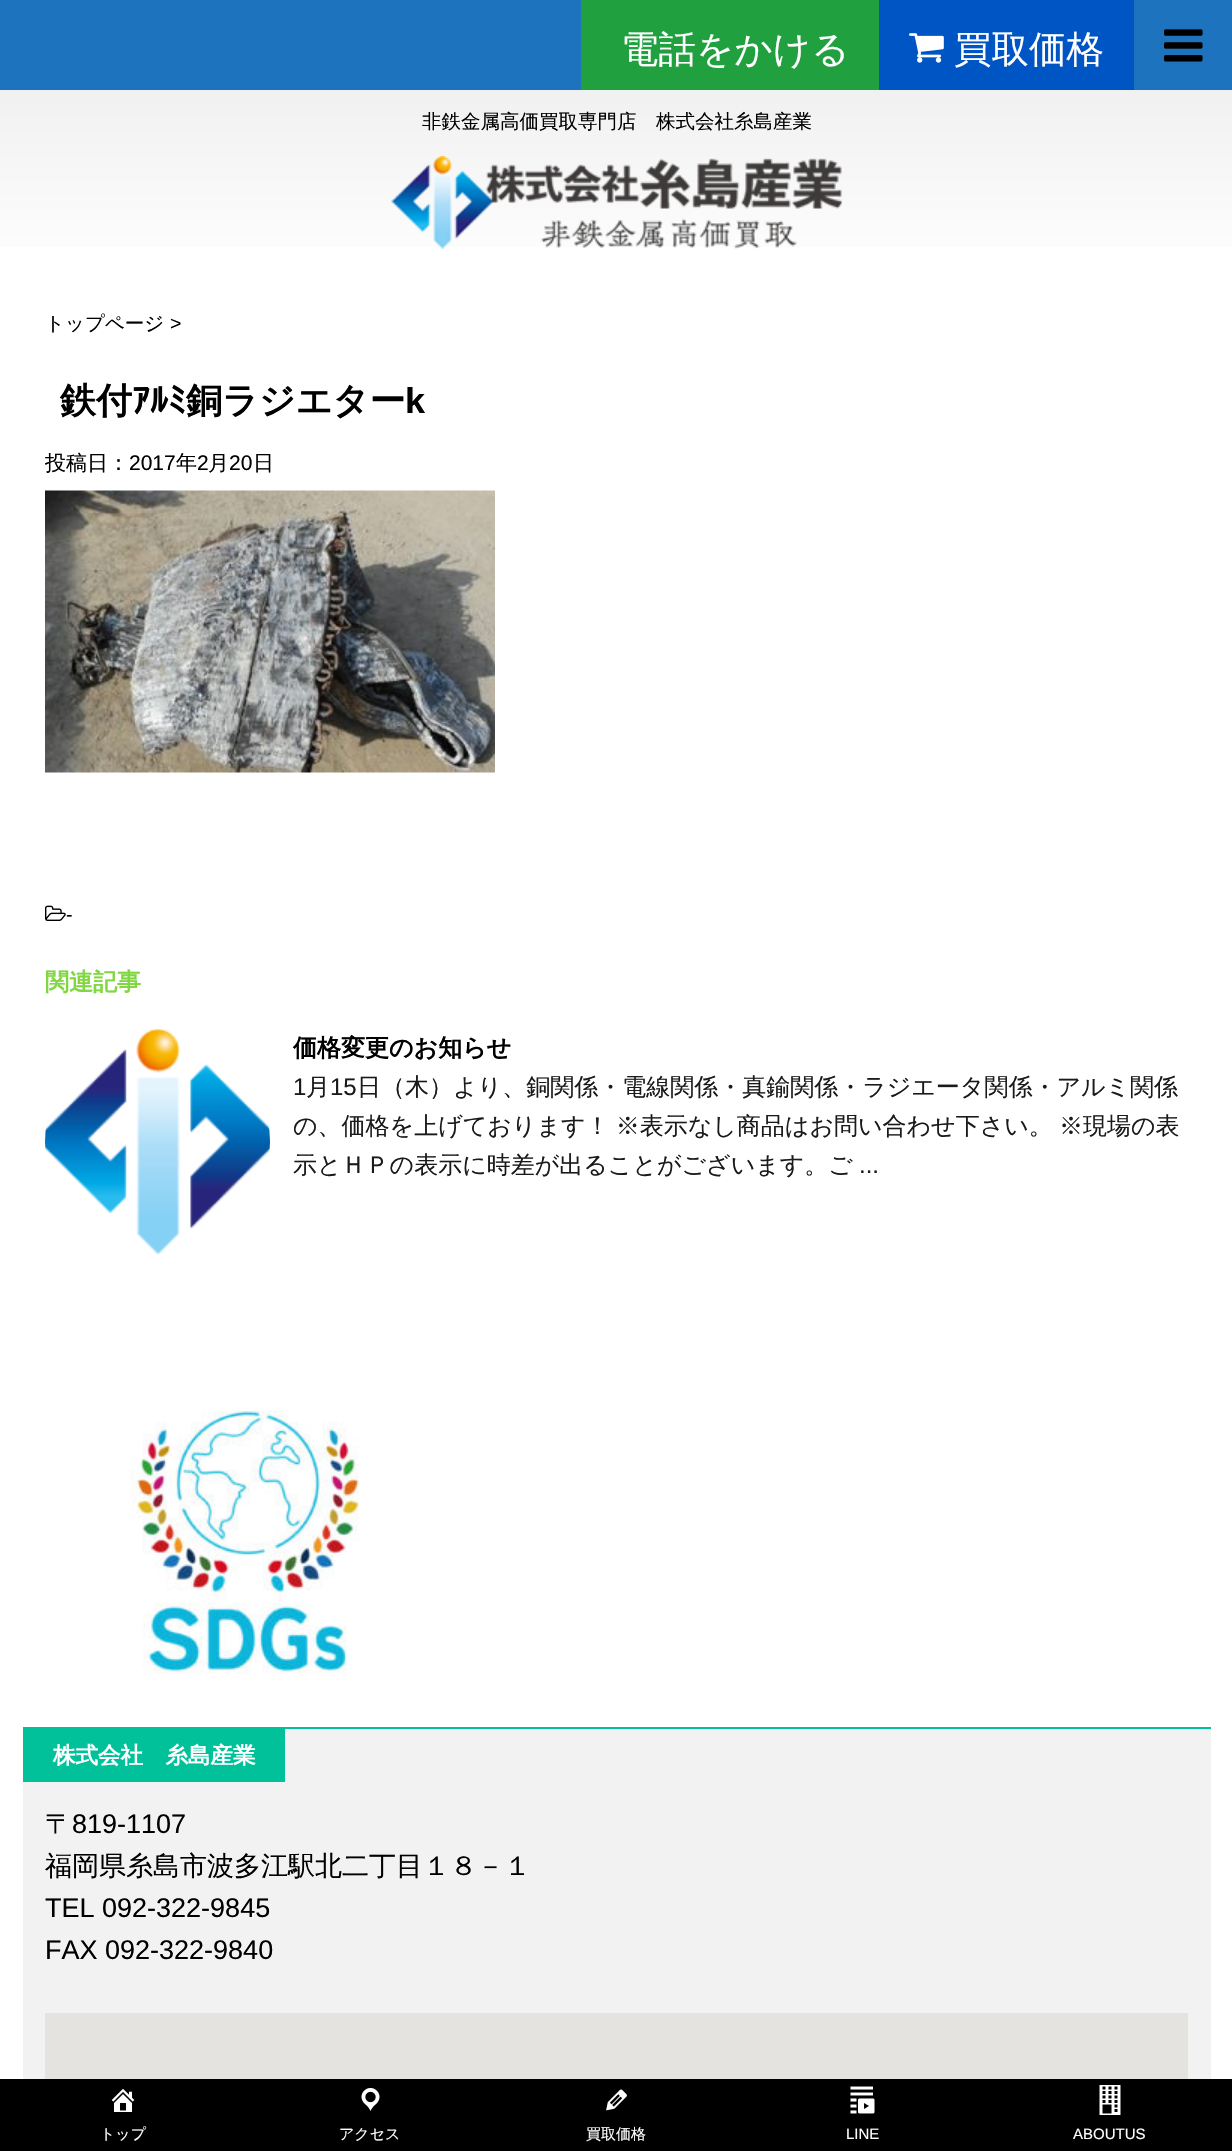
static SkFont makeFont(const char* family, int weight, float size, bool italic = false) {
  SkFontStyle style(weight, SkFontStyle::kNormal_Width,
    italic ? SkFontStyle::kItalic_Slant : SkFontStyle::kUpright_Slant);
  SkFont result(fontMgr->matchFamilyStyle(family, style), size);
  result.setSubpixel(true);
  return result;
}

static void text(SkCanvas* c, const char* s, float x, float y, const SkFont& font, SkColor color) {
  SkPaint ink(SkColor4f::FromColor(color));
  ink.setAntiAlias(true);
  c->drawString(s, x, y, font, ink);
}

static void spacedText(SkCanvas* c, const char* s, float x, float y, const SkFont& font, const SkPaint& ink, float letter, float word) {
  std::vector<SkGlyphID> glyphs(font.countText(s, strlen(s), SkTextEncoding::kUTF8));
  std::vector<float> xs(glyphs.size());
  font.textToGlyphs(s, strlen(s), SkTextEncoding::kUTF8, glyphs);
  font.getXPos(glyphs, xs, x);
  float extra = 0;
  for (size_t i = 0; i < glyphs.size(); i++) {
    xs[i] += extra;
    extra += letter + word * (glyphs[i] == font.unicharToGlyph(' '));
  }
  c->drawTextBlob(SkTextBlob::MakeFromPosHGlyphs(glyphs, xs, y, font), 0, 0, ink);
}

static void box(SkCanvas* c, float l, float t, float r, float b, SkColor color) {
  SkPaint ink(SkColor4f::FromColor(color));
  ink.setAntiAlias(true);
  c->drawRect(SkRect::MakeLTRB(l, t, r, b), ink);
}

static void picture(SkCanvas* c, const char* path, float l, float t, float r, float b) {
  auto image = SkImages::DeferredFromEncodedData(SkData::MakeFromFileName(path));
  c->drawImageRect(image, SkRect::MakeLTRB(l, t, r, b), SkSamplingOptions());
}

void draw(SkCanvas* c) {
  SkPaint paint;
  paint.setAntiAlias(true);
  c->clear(0xffffffff);
  {
    const SkColor colors[] = {0xffeaeaea, 0xffffffff};
    const float stops[] = {0, 1};
    const SkPoint ends[] = {{617, 7.5f}, {617, 279}};
    paint.setShader(SkGradientShader::MakeLinear(ends, colors, stops, 2, SkTileMode::kClamp));
    paint.setAlpha(255);
  }
  c->drawRect(SkRect::MakeLTRB(0, 90, 1232, 247), paint);
  box(c, 0, 0, 1232, 90, 0xff1e73be);
  box(c, 581, 0, 879, 90, 0xff20a03e);
  SkFont face1 = makeFont("WenQuanYi Zen Hei", 500, 37.5f);
  text(c, "電話をかける", 621, 62, face1, 0xffffffff);
  box(c, 879, 0, 1134, 90, 0xff0055c4);
  picture(c, "img_01.png", 909, 33, 944, 63);
  text(c, "買取価格", 954, 62, face1, 0xffffffff);
  picture(c, "img_02.png", 1164, 29, 1203, 62);
  SkFont face2 = makeFont("WenQuanYi Zen Hei", 500, 19.5f);
  text(c, "非鉄金属高価買取専門店　株式会社糸島産業", 422, 128, face2, 0xff000000);
  picture(c, "img_03.png", 391, 156, 842, 249);
  text(c, "トップページ", 45, 330, face2, 0xff000000);
  SkFont face3 = makeFont("Liberation Sans", 400, 19.5f);
  text(c, ">", 170, 330, face3, 0xff000000);
  SkFont face4 = makeFont("WenQuanYi Zen Hei", 700, 36);
  text(c, "鉄付", 60, 413, face4, 0xff000000);
  SkFont face5 = makeFont("IPAPGothic", 700, 36);
  text(c, "ｱﾙﾐ", 132, 413, face5, 0xff000000);
  text(c, "銅ラジエター", 186, 413, face4, 0xff000000);
  SkFont face6 = makeFont("Liberation Sans", 700, 36);
  text(c, "k", 405, 413, face6, 0xff000000);
  SkFont face7 = makeFont("WenQuanYi Zen Hei", 500, 21);
  text(c, "投稿日：", 45, 470, face7, 0xff000000);
  SkFont face8 = makeFont("Liberation Sans", 400, 21);
  text(c, "2017", 129, 470, face8, 0xff000000);
  text(c, "年", 176, 470, face7, 0xff000000);
  text(c, "2", 197, 470, face8, 0xff000000);
  text(c, "月", 208, 470, face7, 0xff000000);
  text(c, "20", 229, 470, face8, 0xff000000);
  text(c, "日", 253, 470, face7, 0xff000000);
  picture(c, "img_04.png", 45, 490, 495, 773);
  picture(c, "img_05.png", 45, 905, 66, 921);
  text(c, "-", 66, 921, face3, 0xff000000);
  SkFont face9 = makeFont("WenQuanYi Zen Hei", 700, 24);
  text(c, "関連記事", 45, 990, face9, 0xff81d742);
  picture(c, "img_06.png", 45, 1029, 270, 1254);
  text(c, "価格変更のお知らせ", 293, 1056, face9, 0xff000000);
  SkFont face10 = makeFont("Liberation Sans", 400, 24);
  text(c, "1", 293, 1095, face10, 0xff1a1a1a);
  SkFont face11 = makeFont("WenQuanYi Zen Hei", 500, 24);
  text(c, "月", 306, 1095, face11, 0xff1a1a1a);
  text(c, "15", 330, 1095, face10, 0xff1a1a1a);
  text(c, "日（木）より、銅関係・電線関係・真鍮関係・ラジエータ関係・アルミ関係", 357, 1095, face11, 0xff1a1a1a);
  paint.setShader(nullptr);
  paint.setColor(0xff1a1a1a);
  spacedText(c, "の、価格を上げております！ ※表示なし商品はお問い合わせ下さい。 ※現場の表", 293, 1134, face11, paint, 0, -1);
  text(c, "示とＨＰの表示に時差が出ることがございます。ご", 293, 1173, face11, 0xff1a1a1a);
  text(c, "...", 859, 1173, face10, 0xff1a1a1a);
  picture(c, "img_07.png", 130, 1410, 359, 1674);
  box(c, 23, 1729, 1211, 2079, 0xfff2f2f2);
  box(c, 23, 1727, 1211, 1729, 0xff01c19b);
  box(c, 23, 1729, 285, 1782, 0xff01c19b);
  SkFont face12 = makeFont("WenQuanYi Zen Hei", 700, 22.5f);
  text(c, "株式会社　糸島産業", 53, 1763, face12, 0xffffffff);
  SkFont face13 = makeFont("WenQuanYi Zen Hei", 500, 27);
  text(c, "〒", 45, 1833, face13, 0xff000000);
  SkFont face14 = makeFont("Liberation Sans", 400, 27);
  text(c, "819-1107", 72, 1833, face14, 0xff000000);
  text(c, "福岡県糸島市波多江駅北二丁目１８－１", 45, 1875, face13, 0xff000000);
  text(c, "TEL 092-322-9845", 45, 1917, face14, 0xff000000);
  text(c, "FAX 092-322-9840", 45, 1959, face14, 0xff000000);
  picture(c, "img_08.png", 45, 2013, 1188, 2079);
  box(c, 0, 2079, 1232, 2151, 0xff000000);
  picture(c, "img_09.png", 111, 2088, 135, 2112);
  SkFont face15 = makeFont("WenQuanYi Zen Hei", 500, 15);
  text(c, "トップ", 100, 2139, face15, 0xffffffff);
  picture(c, "img_10.png", 361, 2088, 380, 2111);
  text(c, "アクセス", 339, 2139, face15, 0xffffffff);
  picture(c, "img_11.png", 606, 2089, 627, 2111);
  text(c, "買取価格", 586, 2139, face15, 0xffffffff);
  picture(c, "img_12.png", 850, 2086, 875, 2114);
  SkFont face16 = makeFont("Liberation Sans", 400, 15);
  text(c, "LINE", 846, 2139, face16, 0xffffffff);
  picture(c, "img_13.png", 1099, 2085, 1121, 2115);
  text(c, "ABOUTUS", 1073, 2139, face16, 0xffffffff);
}
